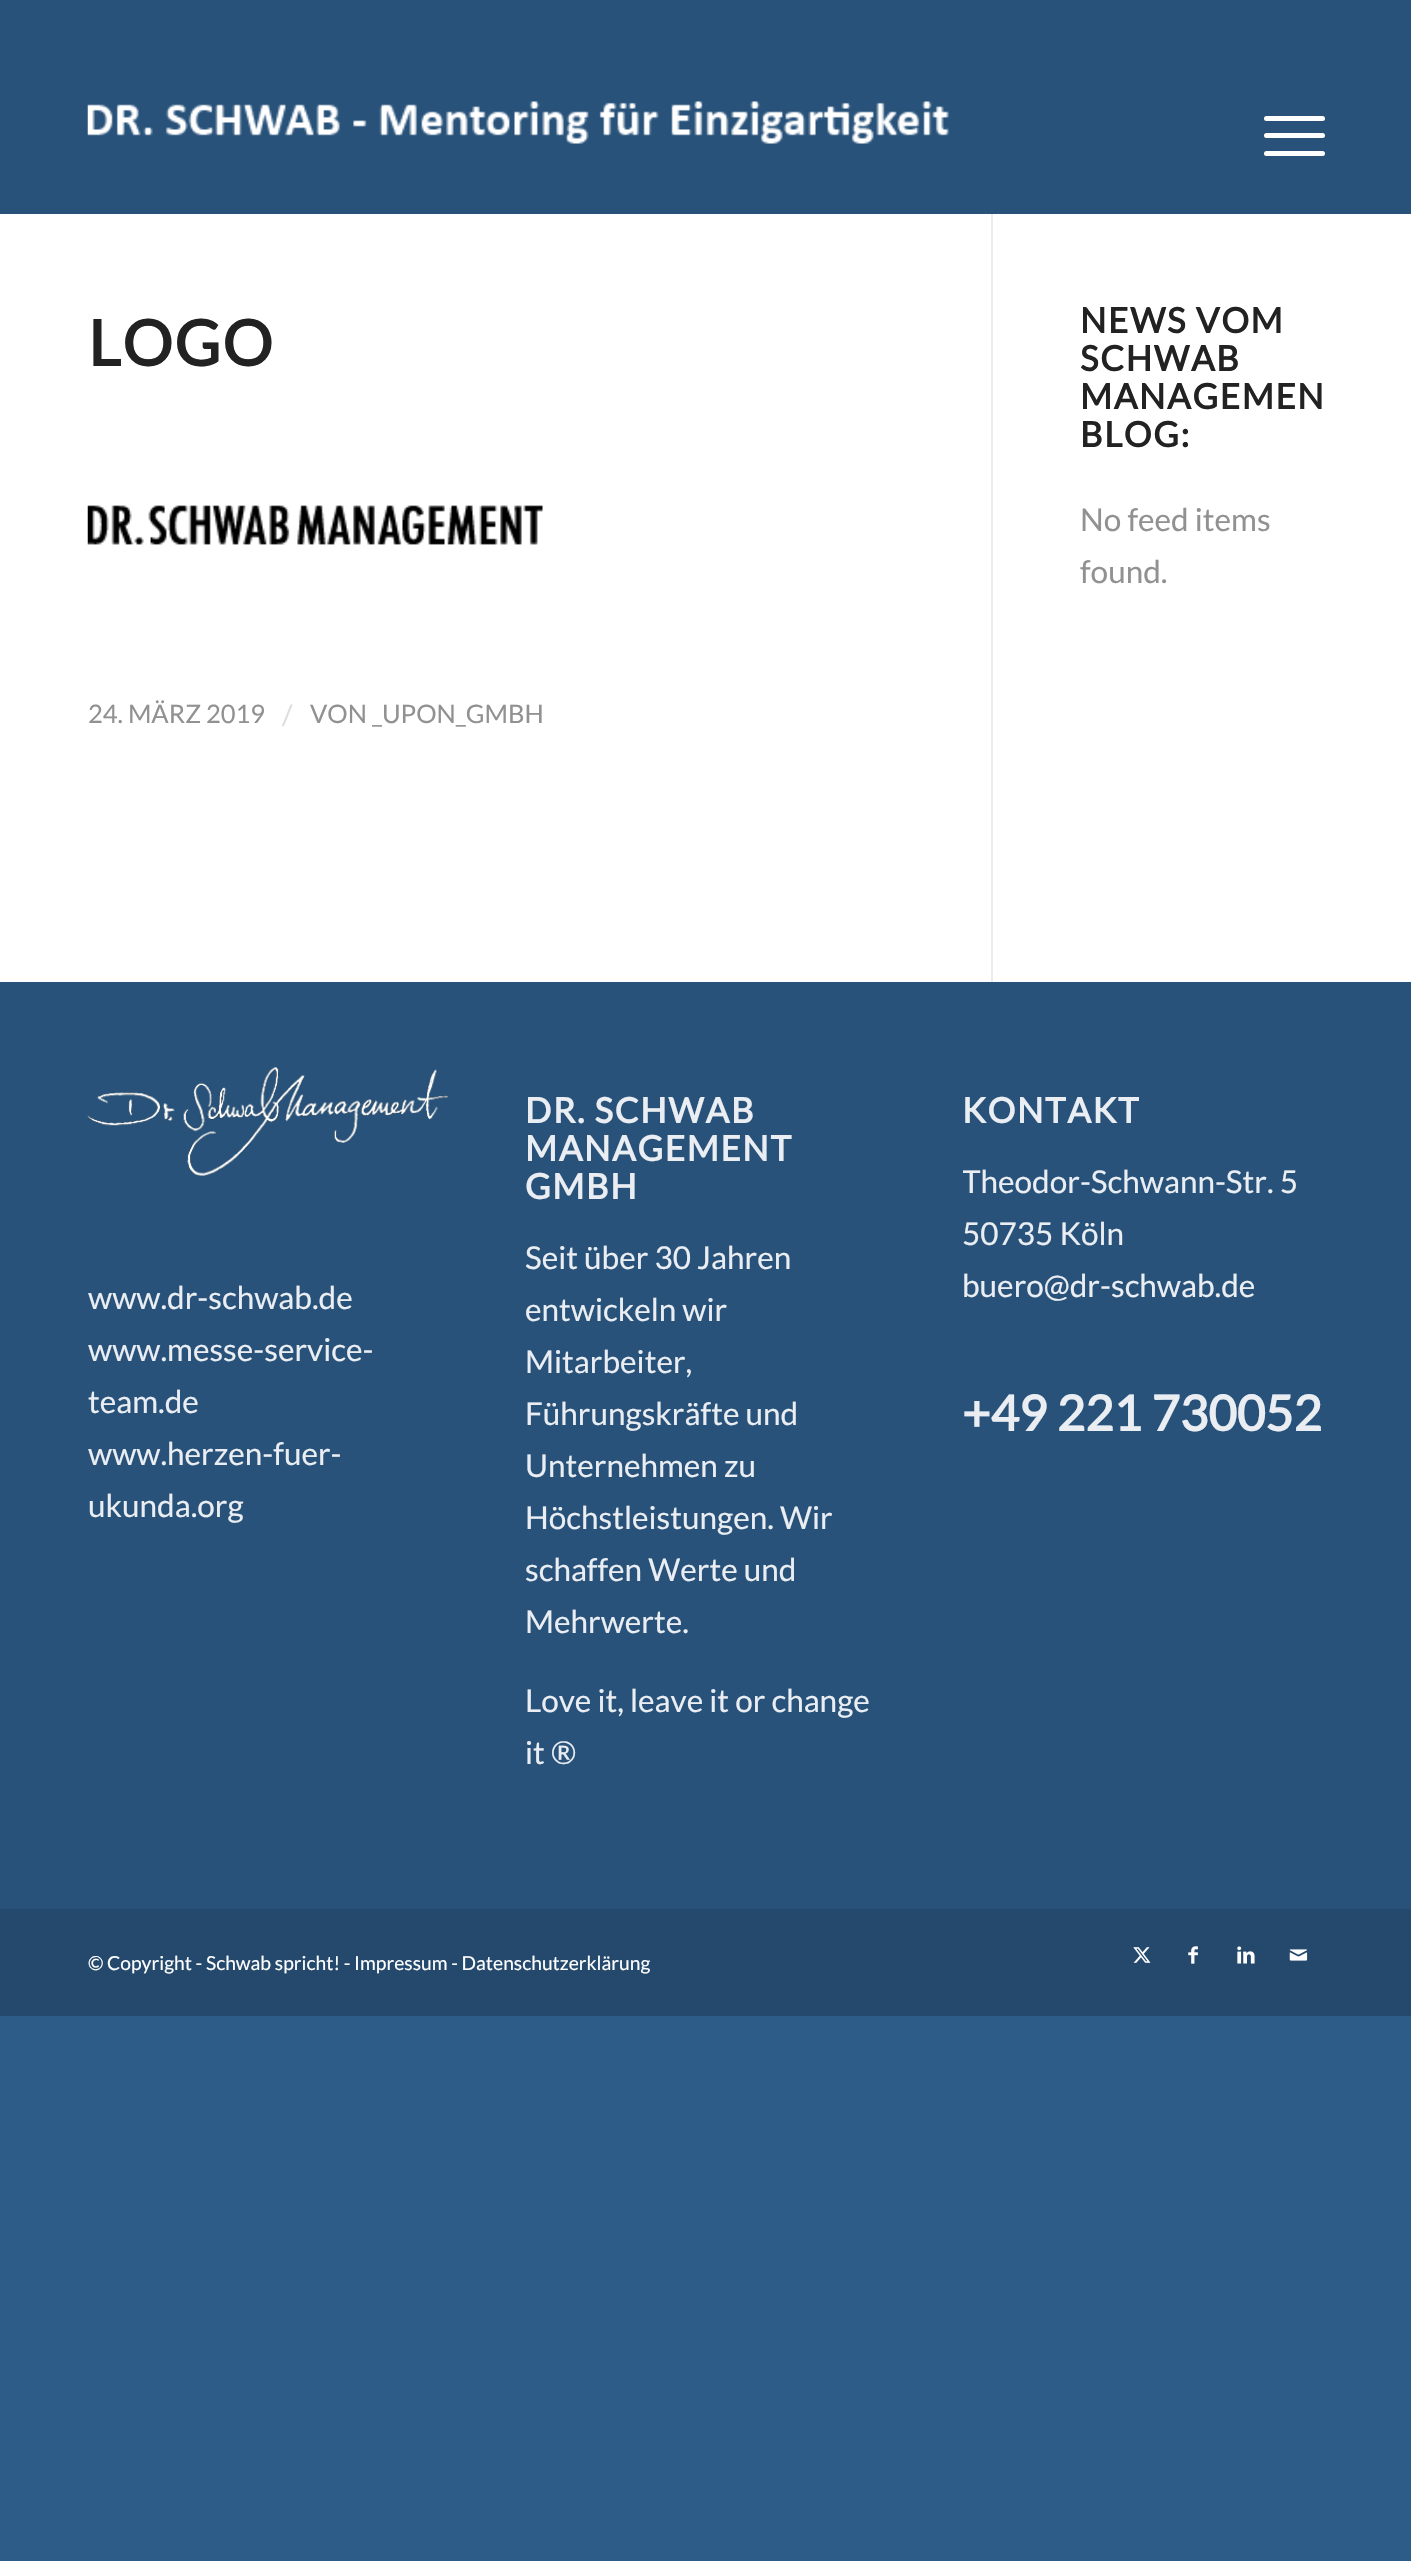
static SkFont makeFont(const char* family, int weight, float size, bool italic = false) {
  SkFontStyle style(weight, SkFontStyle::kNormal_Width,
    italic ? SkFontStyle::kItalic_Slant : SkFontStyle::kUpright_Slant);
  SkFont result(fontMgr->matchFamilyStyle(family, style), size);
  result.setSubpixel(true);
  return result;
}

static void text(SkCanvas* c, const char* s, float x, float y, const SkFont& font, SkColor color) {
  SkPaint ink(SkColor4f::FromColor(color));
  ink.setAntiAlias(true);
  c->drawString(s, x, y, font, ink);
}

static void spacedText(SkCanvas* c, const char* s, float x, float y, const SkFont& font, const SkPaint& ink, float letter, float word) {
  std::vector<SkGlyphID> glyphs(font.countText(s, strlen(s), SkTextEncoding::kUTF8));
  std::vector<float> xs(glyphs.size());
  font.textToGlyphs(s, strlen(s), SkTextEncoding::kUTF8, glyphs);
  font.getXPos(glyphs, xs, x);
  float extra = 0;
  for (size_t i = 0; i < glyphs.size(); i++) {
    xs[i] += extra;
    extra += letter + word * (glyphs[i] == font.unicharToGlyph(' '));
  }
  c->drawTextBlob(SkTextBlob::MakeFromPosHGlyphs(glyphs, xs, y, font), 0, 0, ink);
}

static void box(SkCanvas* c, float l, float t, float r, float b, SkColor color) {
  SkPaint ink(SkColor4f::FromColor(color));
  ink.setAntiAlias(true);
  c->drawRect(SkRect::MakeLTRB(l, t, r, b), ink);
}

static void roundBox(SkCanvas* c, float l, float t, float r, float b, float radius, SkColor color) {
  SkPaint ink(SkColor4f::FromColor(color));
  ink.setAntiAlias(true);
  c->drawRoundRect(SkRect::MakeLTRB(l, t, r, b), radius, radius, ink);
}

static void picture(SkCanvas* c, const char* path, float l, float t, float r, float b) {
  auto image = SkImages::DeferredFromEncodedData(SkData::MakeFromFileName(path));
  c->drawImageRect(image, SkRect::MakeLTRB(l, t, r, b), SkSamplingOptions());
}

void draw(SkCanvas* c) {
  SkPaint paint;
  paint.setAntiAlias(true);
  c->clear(0xff2d5c88);
  box(c, 0, 0, 1411, 214, 0xff28527a);
  picture(c, "img_01.png", 87, 101, 949, 144);
  roundBox(c, 1264, 133, 1325, 138, 2.5f, 0xffffffff);
  roundBox(c, 1264, 116, 1325, 121, 2.5f, 0xffffffff);
  roundBox(c, 1264, 151, 1325, 156, 2.5f, 0xffffffff);
  box(c, 0, 982, 1411, 1909, 0xff28527a);
  box(c, 0, 214, 1411, 982, 0xffffffff);
  box(c, 991, 214, 993, 982, 0xffeaeef3);
  SkFont face1 = makeFont("Lato", 700, 63);
  paint.setColor(0xff222222);
  spacedText(c, "LOGO", 88, 366, face1, paint, 1.75f, 0);
  picture(c, "img_02.png", 87, 505, 543, 545);
  SkFont face2 = makeFont("Lato", 400, 25.5f);
  text(c, "24. MÄRZ 2019", 88, 723, face2, 0xff919191);
  SkFont face3 = makeFont("Lato", 400, 28);
  text(c, "/", 282, 725, face3, 0xffdedede);
  text(c, "VON _UPON_GMBH", 310, 723, face2, 0xff919191);
  SkFont face4 = makeFont("Lato", 700, 34.75f);
  spacedText(c, "NEWS VOM", 1080, 333, face4, paint, 1.75f, 0);
  spacedText(c, "SCHWAB", 1080, 371, face4, paint, 1.75f, 0);
  spacedText(c, "MANAGEMEN", 1080, 409, face4, paint, 1.75f, 0);
  spacedText(c, "BLOG:", 1080, 447, face4, paint, 1.75f, 0);
  SkFont face5 = makeFont("Lato", 400, 31.5f);
  text(c, "No feed items", 1080, 531, face5, 0xff919191);
  text(c, "found.", 1080, 583, face5, 0xff919191);
  picture(c, "img_03.png", 87, 1067, 448, 1176);
  text(c, "www.dr-schwab.de", 88, 1309, face5, 0xffeaeef3);
  text(c, "www.messe-service-", 88, 1361, face5, 0xffeaeef3);
  text(c, "team.de", 88, 1413, face5, 0xffeaeef3);
  text(c, "www.herzen-fuer-", 88, 1465, face5, 0xffeaeef3);
  text(c, "ukunda.org", 88, 1517, face5, 0xffeaeef3);
  paint.setColor(0xffeaeef3);
  spacedText(c, "DR. SCHWAB", 525, 1123, face4, paint, 1.75f, 0);
  spacedText(c, "MANAGEMENT", 525, 1161, face4, paint, 1.75f, 0);
  spacedText(c, "GMBH", 525, 1199, face4, paint, 1.75f, 0);
  text(c, "Seit über 30 Jahren", 525, 1269, face5, 0xffeaeef3);
  text(c, "entwickeln wir", 525, 1321, face5, 0xffeaeef3);
  text(c, "Mitarbeiter,", 525, 1373, face5, 0xffeaeef3);
  text(c, "Führungskräfte und", 525, 1425, face5, 0xffeaeef3);
  text(c, "Unternehmen zu", 525, 1477, face5, 0xffeaeef3);
  text(c, "Höchstleistungen. Wir", 525, 1529, face5, 0xffeaeef3);
  text(c, "schaffen Werte und", 525, 1581, face5, 0xffeaeef3);
  text(c, "Mehrwerte.", 525, 1633, face5, 0xffeaeef3);
  text(c, "Love it, leave it or change", 525, 1712, face5, 0xffeaeef3);
  text(c, "it ®", 525, 1764, face5, 0xffeaeef3);
  spacedText(c, "KONTAKT", 962, 1123, face4, paint, 1.75f, 0);
  c->save();
  c->clipRect(SkRect::MakeLTRB(963, 1062, 1325, 1458));
  text(c, "Theodor-Schwann-Str. 5", 962, 1193, face5, 0xffeaeef3);
  c->restore();
  text(c, "50735 Köln", 962, 1245, face5, 0xffeaeef3);
  text(c, "buero@dr-schwab.de", 962, 1297, face5, 0xffeaeef3);
  SkFont face6 = makeFont("Lato", 700, 49);
  text(c, "+49 221 730052", 962, 1431, face6, 0xffeaeef3);
  box(c, 0, 1909, 1411, 2016, 0xff24496c);
  SkFont face7 = makeFont("Lato", 400, 19.25f);
  text(c, "© Copyright - Schwab spricht! - Impressum - Datenschutzerklärung", 88, 1970, face7, 0xffffffff);
  picture(c, "img_04.png", 1133, 1947, 1151, 1963);
  picture(c, "img_05.png", 1188, 1946, 1198, 1964);
  picture(c, "img_06.png", 1237, 1946, 1255, 1964);
  picture(c, "img_07.png", 1289, 1949, 1308, 1961);
}
